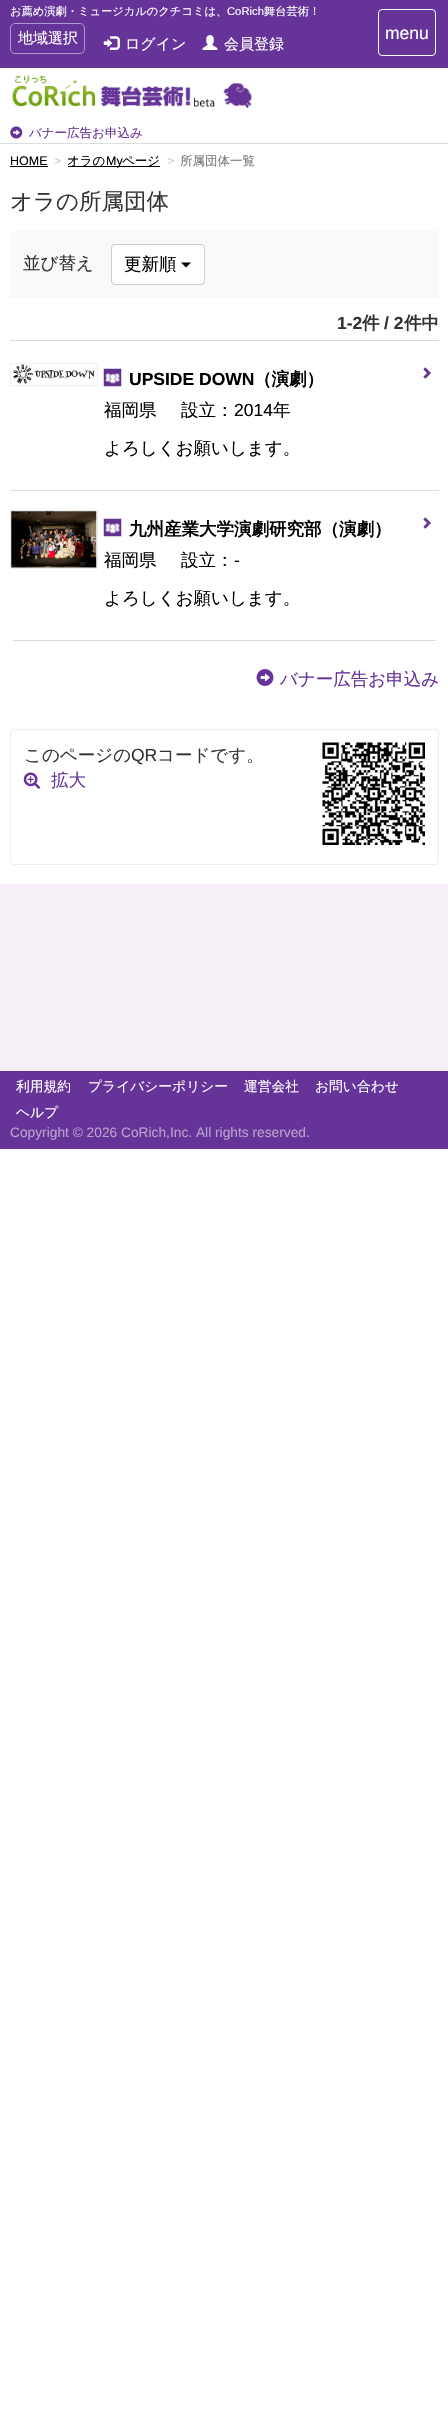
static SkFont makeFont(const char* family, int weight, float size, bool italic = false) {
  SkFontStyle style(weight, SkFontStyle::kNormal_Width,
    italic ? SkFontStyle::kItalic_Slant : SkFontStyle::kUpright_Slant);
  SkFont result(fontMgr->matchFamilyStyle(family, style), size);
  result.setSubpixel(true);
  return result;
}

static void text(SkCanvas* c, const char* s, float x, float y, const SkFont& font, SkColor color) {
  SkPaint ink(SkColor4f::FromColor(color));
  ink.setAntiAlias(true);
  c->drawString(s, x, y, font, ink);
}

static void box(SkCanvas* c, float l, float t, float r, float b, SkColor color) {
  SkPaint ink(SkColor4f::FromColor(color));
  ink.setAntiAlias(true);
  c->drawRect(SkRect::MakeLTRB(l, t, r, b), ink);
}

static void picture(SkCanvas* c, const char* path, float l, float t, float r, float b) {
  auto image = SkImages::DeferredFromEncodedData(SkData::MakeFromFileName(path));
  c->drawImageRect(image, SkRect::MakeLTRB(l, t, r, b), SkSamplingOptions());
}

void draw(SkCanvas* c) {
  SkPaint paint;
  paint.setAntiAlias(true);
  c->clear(0xffffffff);
  box(c, 0, 143, 448, 144, 0xffdddddd);
  box(c, 0, 0, 448, 68, 0xff663399);
  SkFont face1 = makeFont("WenQuanYi Zen Hei", 500, 11.25f);
  text(c, "お薦め演劇・ミュージカルのクチコミは、", 10, 15, face1, 0xffffffff);
  SkFont face2 = makeFont("Liberation Sans", 400, 11.25f);
  text(c, "CoRich", 227, 15, face2, 0xffffffff);
  text(c, "舞台芸術！", 264, 15, face1, 0xffffffff);
  paint.setStyle(SkPaint::kStroke_Style);
  paint.setStrokeWidth(1);
  paint.setColor(0xffb299cc);
  c->drawRoundRect(SkRect::MakeLTRB(10.5f, 23.5f, 84.5f, 53.5f), 4.5f, 4.5f, paint);
  SkFont face3 = makeFont("WenQuanYi Zen Hei", 500, 15);
  text(c, "地域選択", 18, 43, face3, 0xffffffff);
  picture(c, "img_01.png", 103, 36, 120, 50);
  text(c, "ログイン", 125, 49, face3, 0xffffffff);
  picture(c, "img_02.png", 202, 35, 218, 50);
  text(c, "会員登録", 224, 49, face3, 0xffffffff);
  picture(c, "img_03.png", 12, 75, 252, 108);
  picture(c, "img_04.png", 10, 126, 23, 139);
  SkFont face4 = makeFont("WenQuanYi Zen Hei", 500, 12.5f);
  text(c, "バナー広告お申込み", 29, 137, face4, 0xff663399);
  paint.setColor(0xffffffff);
  c->drawRoundRect(SkRect::MakeLTRB(378.5f, 9.5f, 435.5f, 55.5f), 3.5f, 3.5f, paint);
  SkFont face5 = makeFont("Liberation Sans", 400, 17.5f);
  text(c, "menu", 385, 39, face5, 0xffffffff);
  SkFont face6 = makeFont("Liberation Sans", 400, 12.5f);
  text(c, "HOME", 10, 165, face6, 0xff000000);
  box(c, 10, 166, 48, 167, 0xff000000);
  text(c, ">", 54, 165, face6, 0xffcccccc);
  box(c, 68, 166, 160, 167, 0xff000000);
  text(c, "オラの", 67, 165, face4, 0xff000000);
  text(c, "My", 106, 165, face6, 0xff000000);
  text(c, "ページ", 122, 165, face4, 0xff000000);
  text(c, ">", 167, 165, face6, 0xffcccccc);
  text(c, "所属団体一覧", 180, 165, face4, 0xff777777);
  SkFont face7 = makeFont("WenQuanYi Zen Hei", 500, 22.5f);
  text(c, "オラの所属団体", 10, 209, face7, 0xff333333);
  box(c, 10, 231, 439, 298, 0xfff9f9f9);
  SkFont face8 = makeFont("WenQuanYi Zen Hei", 500, 17.5f);
  text(c, "並び替え", 23, 269, face8, 0xff333333);
  paint.setStyle(SkPaint::kFill_Style);
  c->drawRoundRect(SkRect::MakeLTRB(111.5f, 244.5f, 204.5f, 284.5f), 3.5f, 3.5f, paint);
  paint.setStyle(SkPaint::kStroke_Style);
  paint.setColor(0xffcccccc);
  c->drawRoundRect(SkRect::MakeLTRB(111.5f, 244.5f, 204.5f, 284.5f), 3.5f, 3.5f, paint);
  text(c, "更新順", 124, 270, face8, 0xff000000);
  paint.setStyle(SkPaint::kFill_Style);
  paint.setColor(0xff000000);
  c->drawPath(SkPathBuilder().moveTo(181, 262.5f).lineTo(191, 262.5f).lineTo(186, 267.5f).close().detach(), paint);
  SkFont face9 = makeFont("Liberation Sans", 700, 17.5f);
  text(c, "1-2", 337, 329, face9, 0xff333333);
  SkFont face10 = makeFont("WenQuanYi Zen Hei", 700, 17.5f);
  text(c, "件", 362, 329, face10, 0xff333333);
  text(c, "/ 2", 384, 329, face9, 0xff333333);
  text(c, "件中", 404, 329, face10, 0xff333333);
  box(c, 10, 340, 439, 341, 0xffdddddd);
  paint.setStyle(SkPaint::kStroke_Style);
  paint.setStrokeWidth(1.2f);
  paint.setColor(0xffdddddd);
  paint.setPathEffect(SkDashPathEffect::Make({{1.25f, 1.25f}}, 0));
  c->drawPath(SkPathBuilder().moveTo(10, 490.5f).lineTo(439, 490.5f).detach(), paint);
  paint.setPathEffect(nullptr);
  paint.setStrokeWidth(1);
  paint.setColor(0xffeeeeee);
  c->drawRect(SkRect::MakeLTRB(10.5f, 363.5f, 97.5f, 385.5f), paint);
  picture(c, "img_05.png", 12, 363, 96, 384);
  picture(c, "img_06.png", 103, 368, 122, 387);
  text(c, "UPSIDE DOWN", 129, 385, face9, 0xff000000);
  text(c, "（演劇）", 254, 385, face10, 0xff000000);
  picture(c, "img_07.png", 423, 367, 431, 379);
  text(c, "福岡県", 104, 416, face8, 0xff000000);
  text(c, "設立：", 181, 416, face8, 0xff000000);
  text(c, "2014", 234, 416, face5, 0xff000000);
  text(c, "年", 273, 416, face8, 0xff000000);
  text(c, "よろしくお願いします。", 104, 454, face8, 0xff000000);
  paint.setStyle(SkPaint::kFill_Style);
  paint.setColor(0xffffffff);
  c->drawPath(SkPathBuilder().moveTo(10, 490).lineTo(439, 490).lineTo(439, 636).cubicTo(439, 639, 437, 641, 434, 641).lineTo(15, 641).cubicTo(12, 641, 10, 639, 10, 636).close().detach(), paint);
  box(c, 10, 490, 439, 491, 0xffdddddd);
  box(c, 13, 640, 436, 641, 0xffdddddd);
  paint.setStyle(SkPaint::kStroke_Style);
  paint.setColor(0xffeeeeee);
  c->drawRect(SkRect::MakeLTRB(10.5f, 510.5f, 97.5f, 568.5f), paint);
  picture(c, "img_08.png", 11, 511, 97, 568);
  picture(c, "img_06.png", 103, 518, 122, 537);
  text(c, "九州産業大学演劇研究部（演劇）", 129, 535, face10, 0xff000000);
  picture(c, "img_07.png", 423, 517, 431, 529);
  text(c, "福岡県", 104, 566, face8, 0xff000000);
  text(c, "設立：", 181, 566, face8, 0xff000000);
  text(c, "-", 234, 566, face5, 0xff000000);
  text(c, "よろしくお願いします。", 104, 604, face8, 0xff000000);
  picture(c, "img_09.png", 256, 669, 274, 686);
  text(c, "バナー広告お申込み", 280, 685, face8, 0xff663399);
  c->drawRoundRect(SkRect::MakeLTRB(10.5f, 729.5f, 438.5f, 864.5f), 3.5f, 3.5f, paint);
  text(c, "このページの", 24, 761, face8, 0xff333333);
  text(c, "QR", 131, 761, face5, 0xff333333);
  text(c, "コードです。", 157, 761, face8, 0xff333333);
  picture(c, "img_10.png", 322, 742, 425, 845);
  picture(c, "img_11.png", 23, 772, 40, 789);
  text(c, "拡大", 51, 786, face8, 0xff663399);
  box(c, 0, 884, 448, 1071, 0xfff7eff7);
  box(c, 0, 1071, 448, 1149, 0xff663399);
  SkFont face11 = makeFont("WenQuanYi Zen Hei", 500, 13.75f);
  text(c, "利用規約", 16, 1091, face11, 0xffffffff);
  text(c, "プライバシーポリシー", 88, 1091, face11, 0xffffffff);
  text(c, "運営会社", 244, 1091, face11, 0xffffffff);
  text(c, "お問い合わせ", 315, 1091, face11, 0xffffffff);
  text(c, "ヘルプ", 16, 1117, face11, 0xffffffff);
  SkFont face12 = makeFont("Liberation Sans", 400, 13.75f);
  text(c, "Copyright © 2026 CoRich,Inc. All rights reserved.", 10, 1137, face12, 0xffb8a3cc);
}
